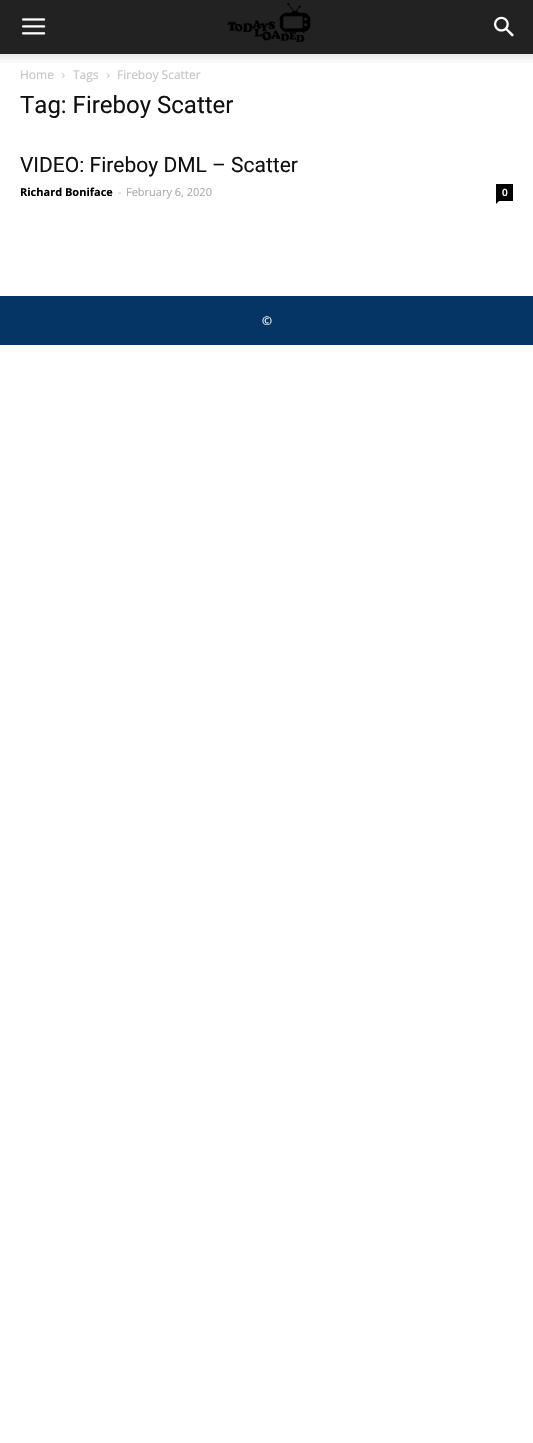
static SkFont makeFont(const char* family, int weight, float size, bool italic = false) {
  SkFontStyle style(weight, SkFontStyle::kNormal_Width,
    italic ? SkFontStyle::kItalic_Slant : SkFontStyle::kUpright_Slant);
  SkFont result(fontMgr->matchFamilyStyle(family, style), size);
  result.setSubpixel(true);
  return result;
}

static void text(SkCanvas* c, const char* s, float x, float y, const SkFont& font, SkColor color) {
  SkPaint ink(SkColor4f::FromColor(color));
  ink.setAntiAlias(true);
  c->drawString(s, x, y, font, ink);
}

static void box(SkCanvas* c, float l, float t, float r, float b, SkColor color) {
  SkPaint ink(SkColor4f::FromColor(color));
  ink.setAntiAlias(true);
  c->drawRect(SkRect::MakeLTRB(l, t, r, b), ink);
}

static void picture(SkCanvas* c, const char* path, float l, float t, float r, float b) {
  auto image = SkImages::DeferredFromEncodedData(SkData::MakeFromFileName(path));
  c->drawImageRect(image, SkRect::MakeLTRB(l, t, r, b), SkSamplingOptions());
}

void draw(SkCanvas* c) {
  SkPaint paint;
  paint.setAntiAlias(true);
  c->clear(0xffffffff);
  box(c, 0, 0, 533, 54, 0xff222222);
  picture(c, "img_01.png", 22, 18, 46, 35);
  picture(c, "img_02.png", 227, 3, 311, 42);
  picture(c, "img_03.png", 494, 16, 514, 37);
  picture(c, "img_04.png", 0, 54, 533, 63);
  SkFont face1 = makeFont("Open Sans", 400, 12);
  text(c, "Home", 20, 79, face1, 0xffc3c3c3);
  picture(c, "img_05.png", 62, 73, 65, 78);
  text(c, "Tags", 73, 79, face1, 0xffc3c3c3);
  picture(c, "img_05.png", 107, 73, 110, 78);
  text(c, "Fireboy Scatter", 117, 79, face1, 0xffc3c3c3);
  SkFont face2 = makeFont("Roboto", 400, 24);
  text(c, "Tag: Fireboy Scatter", 20, 113, face2, 0xff111111);
  SkFont face3 = makeFont("Roboto", 400, 21);
  text(c, "VIDEO: Fireboy DML – Scatter", 20, 172, face3, 0xff111111);
  SkFont face4 = makeFont("Open Sans", 700, 11);
  text(c, "Richard Boniface", 20, 196, face4, 0xff000000);
  SkFont face5 = makeFont("Open Sans", 400, 11);
  text(c, "-", 118, 196, face5, 0xffcccccc);
  text(c, "February 6, 2020", 126, 196, face5, 0xffaaaaaa);
  box(c, 496, 184, 513, 201, 0xff000000);
  SkFont face6 = makeFont("Open Sans", 600, 10);
  text(c, "0", 502, 196, face6, 0xffffffff);
  paint.setColor(0xff000000);
  c->drawPath(SkPathBuilder().moveTo(496, 201).lineTo(499, 201).lineTo(496, 204).close().detach(), paint);
  box(c, 0, 296, 533, 345, 0xff043565);
  text(c, "©", 262, 325, face1, 0xffffffff);
}
